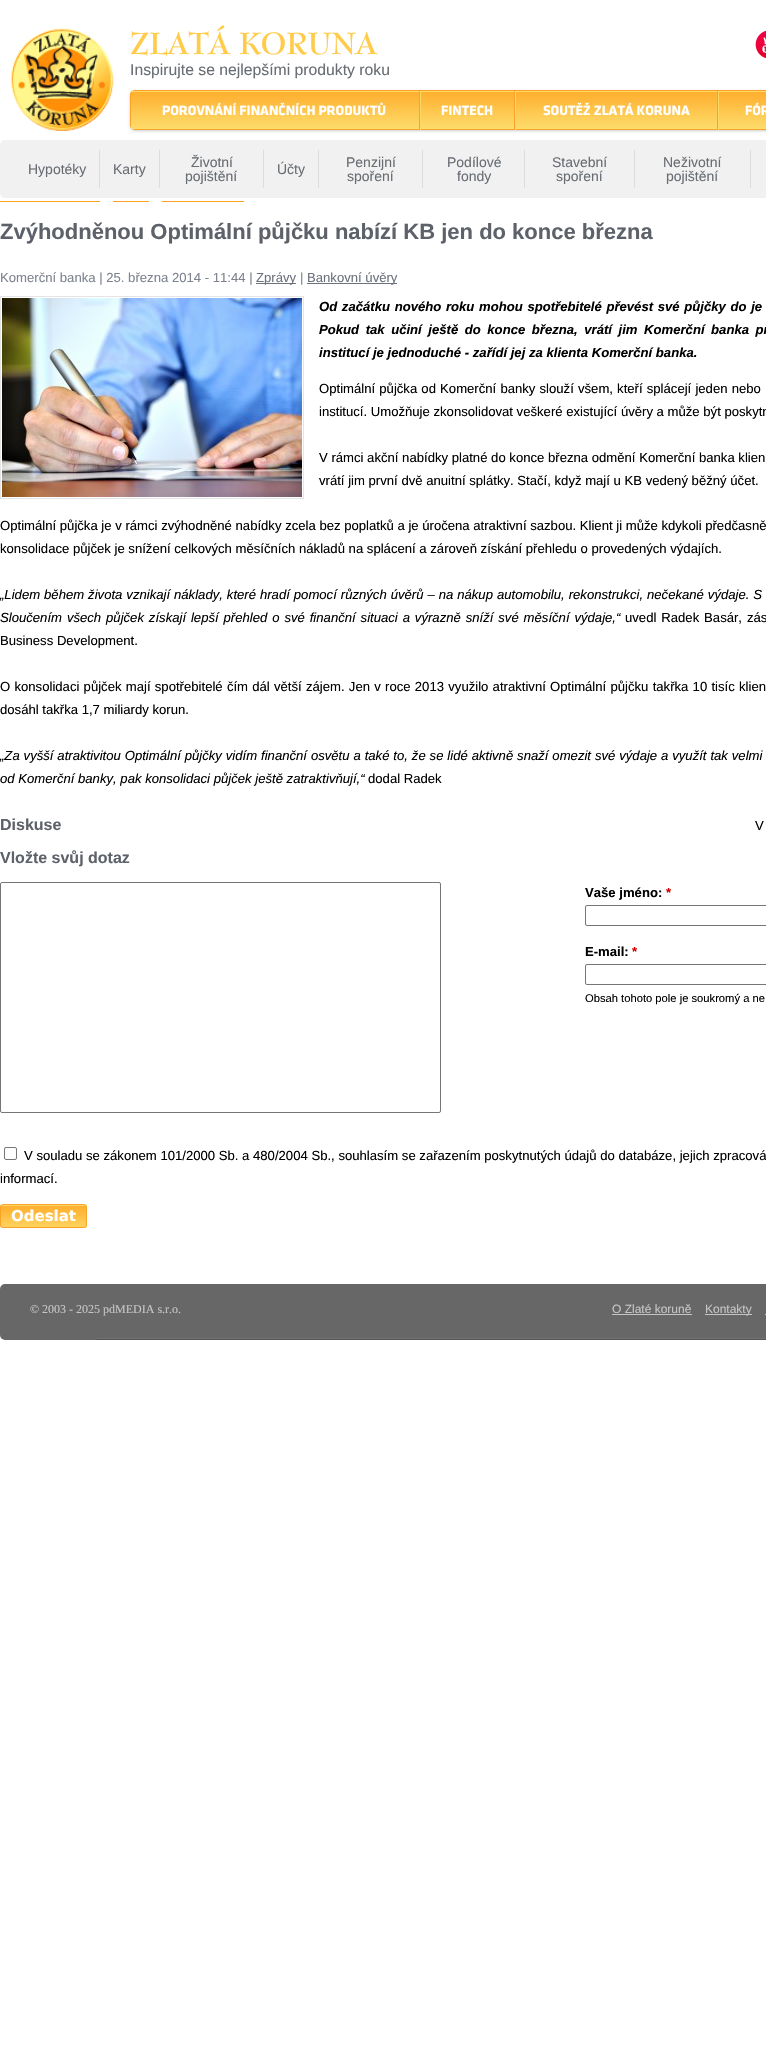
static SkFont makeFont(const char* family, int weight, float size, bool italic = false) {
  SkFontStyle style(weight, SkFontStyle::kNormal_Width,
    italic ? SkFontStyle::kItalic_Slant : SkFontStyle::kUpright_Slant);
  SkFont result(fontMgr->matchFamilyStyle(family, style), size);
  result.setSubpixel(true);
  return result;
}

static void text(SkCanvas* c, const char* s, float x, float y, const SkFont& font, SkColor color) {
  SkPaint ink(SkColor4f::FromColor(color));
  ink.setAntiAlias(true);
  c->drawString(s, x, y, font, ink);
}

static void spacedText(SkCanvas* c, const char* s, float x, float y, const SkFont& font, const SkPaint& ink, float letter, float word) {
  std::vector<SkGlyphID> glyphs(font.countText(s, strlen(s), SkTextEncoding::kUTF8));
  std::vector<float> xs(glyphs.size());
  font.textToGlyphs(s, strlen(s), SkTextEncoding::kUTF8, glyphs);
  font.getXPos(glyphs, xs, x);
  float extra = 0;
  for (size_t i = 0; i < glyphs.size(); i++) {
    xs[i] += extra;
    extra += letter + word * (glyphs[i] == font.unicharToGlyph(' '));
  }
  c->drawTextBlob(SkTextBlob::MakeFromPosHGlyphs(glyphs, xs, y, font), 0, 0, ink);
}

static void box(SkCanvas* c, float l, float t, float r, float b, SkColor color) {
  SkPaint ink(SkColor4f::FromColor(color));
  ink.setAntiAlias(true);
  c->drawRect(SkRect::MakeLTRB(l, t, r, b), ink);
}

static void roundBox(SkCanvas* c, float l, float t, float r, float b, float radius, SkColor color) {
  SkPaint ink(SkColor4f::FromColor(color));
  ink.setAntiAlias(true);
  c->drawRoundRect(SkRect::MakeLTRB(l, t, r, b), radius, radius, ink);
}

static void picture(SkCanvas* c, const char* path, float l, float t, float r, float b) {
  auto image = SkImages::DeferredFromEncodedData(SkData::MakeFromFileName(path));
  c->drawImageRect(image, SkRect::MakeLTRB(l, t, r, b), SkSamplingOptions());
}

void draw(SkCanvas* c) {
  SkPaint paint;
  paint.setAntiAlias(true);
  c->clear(0xffffffff);
  picture(c, "img_01.png", 10, 28, 114, 131);
  SkFont face1 = makeFont("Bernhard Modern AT", 700, 30);
  text(c, "ZLATÁ KORUNA", 130, 54, face1, 0xffffcb49);
  SkFont face2 = makeFont("Liberation Sans", 400, 15.75f);
  text(c, "Inspirujte se nejlepšími produkty roku", 130, 75, face2, 0xff686d73);
  picture(c, "img_02.png", 755, 30, 766, 58);
  paint.setColor(0xffcccccc);
  paint.setMaskFilter(SkMaskFilter::MakeBlur(kNormal_SkBlurStyle, 1.5f));
  c->drawRoundRect(SkRect::MakeLTRB(130, 91, 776, 131), 5, 5, paint);
  paint.setMaskFilter(nullptr);
  picture(c, "img_03.png", 130, 92, 134, 130);
  picture(c, "img_04.png", 130, 90, 766, 130);
  picture(c, "img_05.png", 419, 91, 421, 130);
  picture(c, "img_06.png", 130, 91, 132, 129);
  SkFont face3 = makeFont("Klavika", 700, 14);
  text(c, "POROVNÁNÍ FINANČNÍCH PRODUKTŮ", 162, 115, face3, 0xffffffff);
  picture(c, "img_05.png", 514, 91, 516, 130);
  text(c, "FINTECH", 441, 115, face3, 0xffffffff);
  picture(c, "img_05.png", 717, 91, 719, 130);
  text(c, "SOUTĚŽ ZLATÁ KORUNA", 543, 115, face3, 0xffffffff);
  text(c, "FÓR", 745, 115, face3, 0xffffffff);
  roundBox(c, 0, 140, 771, 198, 5, 0xfff1f1f1);
  box(c, 99, 150, 100, 188, 0xffdddddd);
  SkFont face4 = makeFont("Liberation Sans", 400, 14);
  text(c, "Hypotéky", 28, 174, face4, 0xff686d73);
  box(c, 159, 150, 160, 188, 0xffdddddd);
  text(c, "Karty", 113, 174, face4, 0xff686d73);
  box(c, 263, 150, 264, 188, 0xffdddddd);
  text(c, "Životní", 191, 167, face4, 0xff686d73);
  text(c, "pojištění", 185, 181, face4, 0xff686d73);
  box(c, 318, 150, 319, 188, 0xffdddddd);
  text(c, "Účty", 277, 174, face4, 0xff686d73);
  box(c, 422, 150, 423, 188, 0xffdddddd);
  text(c, "Penzijní", 346, 167, face4, 0xff686d73);
  text(c, "spoření", 347, 181, face4, 0xff686d73);
  box(c, 524, 150, 525, 188, 0xffdddddd);
  text(c, "Podílové", 447, 167, face4, 0xff686d73);
  text(c, "fondy", 457, 181, face4, 0xff686d73);
  box(c, 634, 150, 635, 188, 0xffdddddd);
  text(c, "Stavební", 552, 167, face4, 0xff686d73);
  text(c, "spoření", 556, 181, face4, 0xff686d73);
  box(c, 750, 150, 751, 188, 0xffdddddd);
  text(c, "Neživotní", 663, 167, face4, 0xff686d73);
  text(c, "pojištění", 666, 181, face4, 0xff686d73);
  box(c, 0, 201, 100, 202, 0xfffca227);
  box(c, 113, 201, 149, 202, 0xfffca227);
  box(c, 162, 201, 244, 202, 0xfffca227);
  SkFont face5 = makeFont("Liberation Sans", 700, 22);
  text(c, "Zvýhodněnou Optimální půjčku nabízí KB jen do konce března", 0, 239, face5, 0xff5d6169);
  SkFont face6 = makeFont("Liberation Sans", 400, 13.12f);
  text(c, "Komerční banka | 25. března 2014 - 11:44 |", 0, 282, face6, 0xff7d838f);
  box(c, 256, 283, 296, 284, 0xff6c727e);
  text(c, "Zprávy", 256, 282, face6, 0xff6c727e);
  text(c, "|", 300, 282, face6, 0xff7d838f);
  box(c, 307, 283, 397, 284, 0xff6c727e);
  text(c, "Bankovní úvěry", 307, 282, face6, 0xff6c727e);
  paint.setStyle(SkPaint::kStroke_Style);
  paint.setStrokeWidth(1);
  paint.setColor(0xffe5e5e5);
  c->drawRect(SkRect::MakeLTRB(0.5f, 296.5f, 303.5f, 498.5f), paint);
  picture(c, "img_07.png", 2, 298, 302, 497);
  SkFont face7 = makeFont("Liberation Sans", 700, 13.12f, true);
  paint.setStyle(SkPaint::kFill_Style);
  paint.setColor(0xff000000);
  spacedText(c, "Od začátku nového roku mohou spotřebitelé převést své půjčky do je", 319, 311, face7, paint, 0, 1);
  spacedText(c, "Pokud tak učiní ještě do konce března, vrátí jim Komerční banka pr", 319, 334, face7, paint, 0, 2.9f);
  text(c, "institucí je jednoduché - zařídí jej za klienta Komerční banka.", 319, 357, face7, 0xff000000);
  spacedText(c, "Optimální půjčka od Komerční banky slouží všem, kteří splácejí jeden nebo", 319, 393, face6, paint, 0, 0.5f);
  text(c, "institucí. Umožňuje zkonsolidovat veškeré existující úvěry a může být poskytn", 319, 416, face6, 0xff000000);
  text(c, "V rámci akční nabídky platné do konce března odmění Komerční banka klien", 319, 462, face6, 0xff000000);
  text(c, "vrátí jim první dvě anuitní splátky. Stačí, když mají u KB vedený běžný účet.", 319, 485, face6, 0xff000000);
  text(c, "Optimální půjčka je v rámci zvýhodněné nabídky zcela bez poplatků a je úročena atraktivní sazbou. Klient ji může kdykoli předčasně", 0, 530, face6, 0xff000000);
  text(c, "konsolidace půjček je snížení celkových měsíčních nákladů na splácení a zároveň získání přehledu o provedených výdajích.", 0, 553, face6, 0xff000000);
  SkFont face8 = makeFont("Liberation Sans", 400, 13.12f, true);
  spacedText(c, "„Lidem během života vznikají náklady, které hradí pomocí různých úvěrů – na nákup automobilu, rekonstrukci, nečekané výdaje. S", 0, 599, face8, paint, 0, 0.3f);
  spacedText(c, "Sloučením všech půjček získají lepší přehled o své finanční situaci a výrazně sníží své měsíční výdaje,“", 0, 622, face8, paint, 0, 1.25f);
  spacedText(c, "uvedl Radek Basár, zás", 625, 622, face6, paint, 0, 1.25f);
  text(c, "Business Development.", 0, 645, face6, 0xff000000);
  spacedText(c, "O konsolidaci půjček mají spotřebitelé čím dál větší zájem. Jen v roce 2013 využilo atraktivní Optimální půjčku takřka 10 tisíc klien", 0, 691, face6, paint, 0, 0.6f);
  text(c, "dosáhl takřka 1,7 miliardy korun.", 0, 714, face6, 0xff000000);
  spacedText(c, "„Za vyšší atraktivitou Optimální půjčky vidím finanční osvětu a také to, že se lidé aktivně snaží omezit své výdaje a využít tak velmi", 0, 760, face8, paint, 0, 0.25f);
  text(c, "od Komerční banky, pak konsolidaci půjček ještě zatraktivňují,“", 0, 783, face8, 0xff000000);
  text(c, "dodal Radek", 368, 783, face6, 0xff000000);
  SkFont face9 = makeFont("Liberation Sans", 700, 16);
  text(c, "Diskuse", 0, 830, face9, 0xff5d6169);
  text(c, "V", 755, 830, face6, 0xff000000);
  text(c, "Vložte svůj dotaz", 0, 863, face9, 0xff5d6169);
  paint.setStyle(SkPaint::kStroke_Style);
  paint.setColor(0xff767676);
  c->drawRoundRect(SkRect::MakeLTRB(0.5f, 882.5f, 440.5f, 1112.5f), 1.5f, 1.5f, paint);
  SkFont face10 = makeFont("Liberation Sans", 700, 13.12f);
  text(c, "Vaše jméno:", 585, 897, face10, 0xff000000);
  text(c, "*", 666, 897, face10, 0xffcc0000);
  c->drawRoundRect(SkRect::MakeLTRB(585.5f, 905.5f, 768.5f, 925.5f), 1.5f, 1.5f, paint);
  text(c, "E-mail:", 585, 956, face10, 0xff000000);
  text(c, "*", 632, 956, face10, 0xffcc0000);
  c->drawRoundRect(SkRect::MakeLTRB(585.5f, 964.5f, 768.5f, 984.5f), 1.5f, 1.5f, paint);
  SkFont face11 = makeFont("Liberation Sans", 400, 11.2f);
  text(c, "Obsah tohoto pole je soukromý a ne", 585, 1002, face11, 0xff000000);
  c->drawRoundRect(SkRect::MakeLTRB(4.5f, 1147.5f, 16.5f, 1159.5f), 1.5f, 1.5f, paint);
  text(c, "V souladu se zákonem 101/2000 Sb. a 480/2004 Sb., souhlasím se zařazením poskytnutých údajů do databáze, jejich zpracová", 24, 1160, face6, 0xff000000);
  text(c, "informací.", 0, 1183, face6, 0xff000000);
  picture(c, "img_08.png", 0, 1205, 87, 1228);
  paint.setColor(0xfffba327);
  c->drawRoundRect(SkRect::MakeLTRB(0.5f, 1204.5f, 86.5f, 1227.5f), 2.5f, 2.5f, paint);
  SkFont face12 = makeFont("DejaVu Sans", 700, 15);
  text(c, "Odeslat", 11, 1221, face12, 0xffffffff);
  roundBox(c, 0, 1284, 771, 1340, 5, 0xff676767);
  picture(c, "img_09.png", 96, 1338, 766, 1340);
  SkFont face13 = makeFont("Liberation Serif", 400, 12);
  text(c, "© 2003 - 2025 pdMEDIA s.r.o.", 30, 1313, face13, 0xffc5c5c5);
  SkFont face14 = makeFont("Liberation Sans", 400, 12);
  text(c, "O Zlaté koruně", 612, 1313, face14, 0xffc5c5c5);
  box(c, 612, 1314, 692, 1315, 0xffc5c5c5);
  box(c, 705, 1314, 752, 1315, 0xffc5c5c5);
  text(c, "Kontakty", 705, 1313, face14, 0xffc5c5c5);
  box(c, 765, 1314, 766, 1315, 0xffc5c5c5);
}
